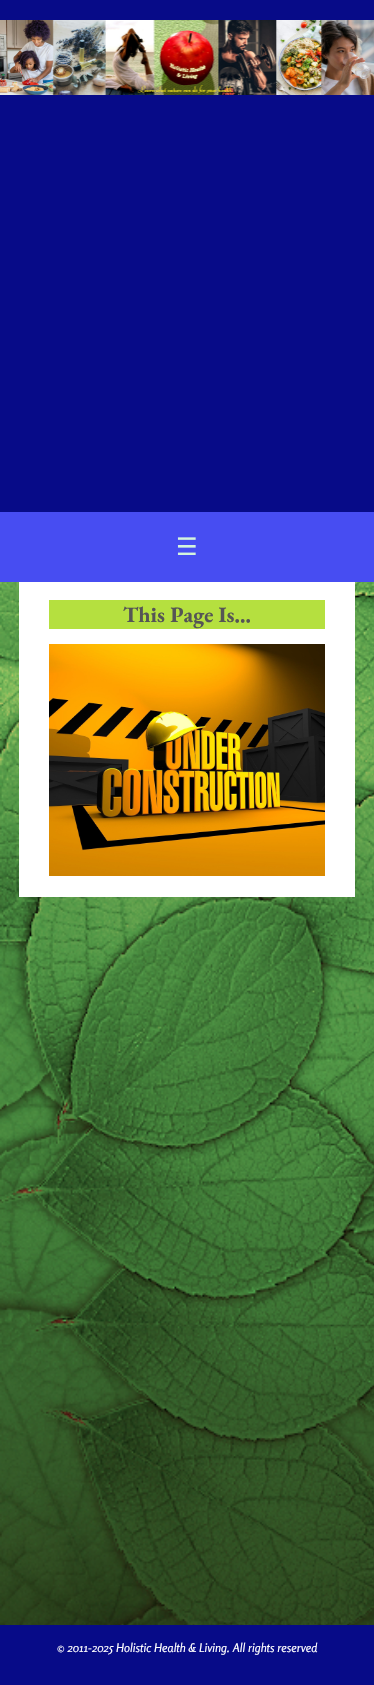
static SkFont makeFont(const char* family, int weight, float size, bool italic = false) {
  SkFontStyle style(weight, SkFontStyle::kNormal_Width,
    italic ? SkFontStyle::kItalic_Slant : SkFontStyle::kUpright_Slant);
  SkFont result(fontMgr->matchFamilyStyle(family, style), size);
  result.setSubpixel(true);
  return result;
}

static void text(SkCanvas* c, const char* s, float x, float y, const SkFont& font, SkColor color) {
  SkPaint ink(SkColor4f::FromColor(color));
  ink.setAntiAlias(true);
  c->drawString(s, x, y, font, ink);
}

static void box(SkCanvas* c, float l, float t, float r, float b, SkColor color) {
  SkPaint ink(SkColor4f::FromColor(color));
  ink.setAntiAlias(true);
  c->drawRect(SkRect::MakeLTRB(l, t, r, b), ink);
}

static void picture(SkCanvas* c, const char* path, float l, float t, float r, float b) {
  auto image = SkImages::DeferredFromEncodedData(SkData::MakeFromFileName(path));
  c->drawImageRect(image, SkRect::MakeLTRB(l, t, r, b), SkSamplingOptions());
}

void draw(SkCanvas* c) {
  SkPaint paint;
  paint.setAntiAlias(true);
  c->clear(0xffffffff);
  picture(c, "img_01.png", 0, 582, 374, 1625);
  box(c, 0, 0, 374, 512, 0xff070b88);
  picture(c, "img_02.png", 0, 20, 374, 95);
  box(c, 0, 512, 374, 582, 0xff474df2);
  SkFont face1 = makeFont("DejaVu Sans", 400, 24);
  text(c, "☰", 176, 555, face1, 0xffd4f4dd);
  box(c, 19, 582, 355, 897, 0xffffffff);
  box(c, 49, 600, 325, 629, 0xffb5e03f);
  SkFont face2 = makeFont("EB Garamond", 700, 22);
  text(c, "This Page Is...", 123, 622, face2, 0xff555555);
  picture(c, "img_03.png", 49, 644, 325, 876);
  box(c, 0, 1625, 374, 1685, 0xff070b88);
  SkFont face3 = makeFont("Rosario", 400, 12, true);
  text(c, "© 2011-2025 Holistic Health & Living. All rights reserved", 57, 1652, face3, 0xffffffff);
}
